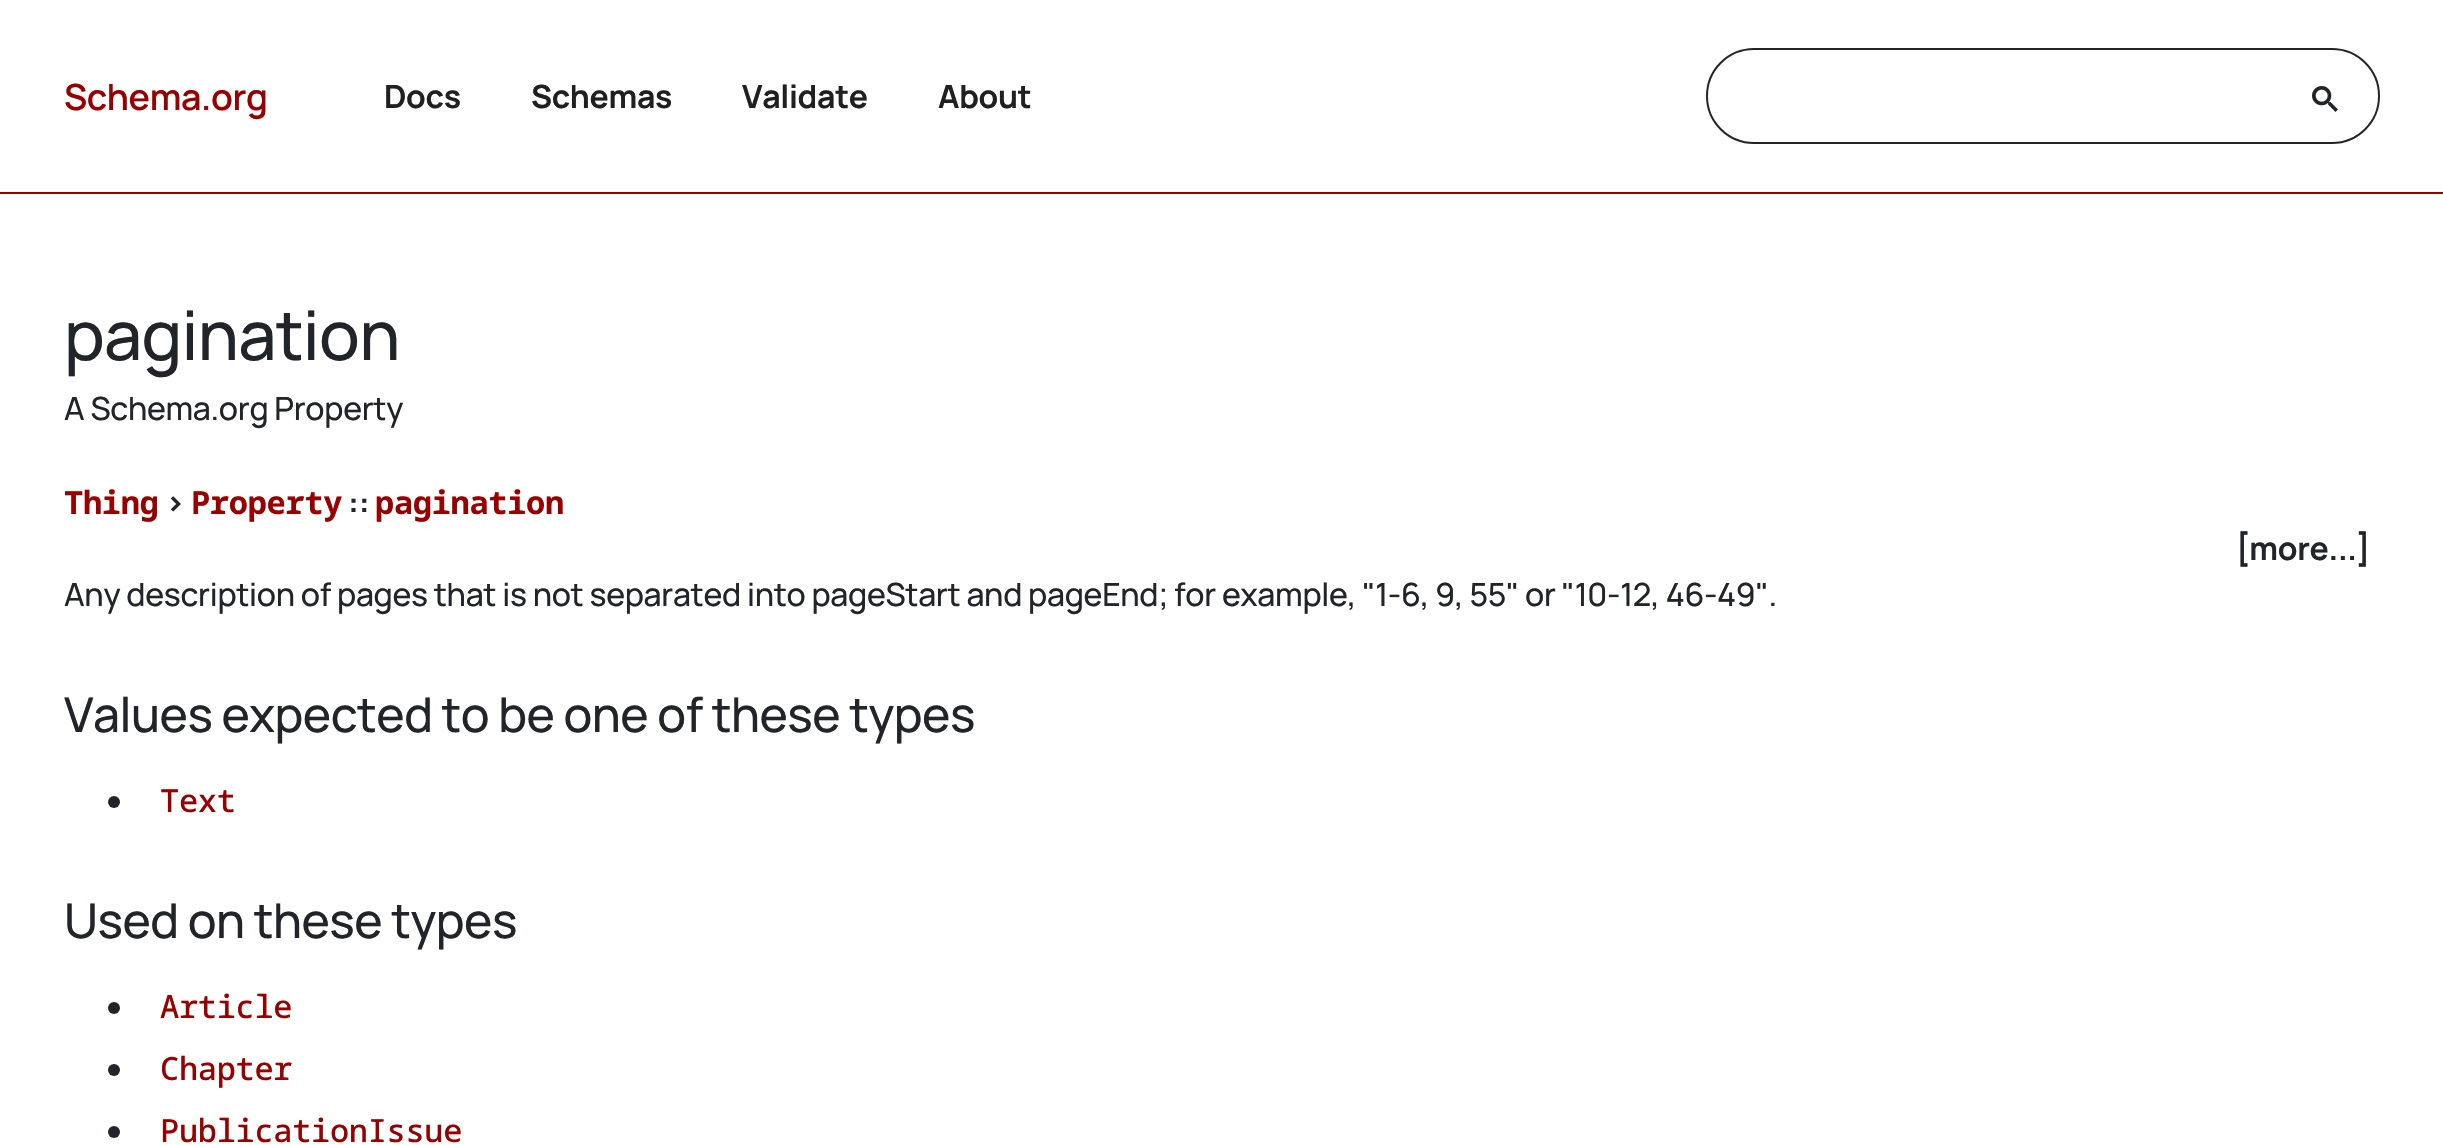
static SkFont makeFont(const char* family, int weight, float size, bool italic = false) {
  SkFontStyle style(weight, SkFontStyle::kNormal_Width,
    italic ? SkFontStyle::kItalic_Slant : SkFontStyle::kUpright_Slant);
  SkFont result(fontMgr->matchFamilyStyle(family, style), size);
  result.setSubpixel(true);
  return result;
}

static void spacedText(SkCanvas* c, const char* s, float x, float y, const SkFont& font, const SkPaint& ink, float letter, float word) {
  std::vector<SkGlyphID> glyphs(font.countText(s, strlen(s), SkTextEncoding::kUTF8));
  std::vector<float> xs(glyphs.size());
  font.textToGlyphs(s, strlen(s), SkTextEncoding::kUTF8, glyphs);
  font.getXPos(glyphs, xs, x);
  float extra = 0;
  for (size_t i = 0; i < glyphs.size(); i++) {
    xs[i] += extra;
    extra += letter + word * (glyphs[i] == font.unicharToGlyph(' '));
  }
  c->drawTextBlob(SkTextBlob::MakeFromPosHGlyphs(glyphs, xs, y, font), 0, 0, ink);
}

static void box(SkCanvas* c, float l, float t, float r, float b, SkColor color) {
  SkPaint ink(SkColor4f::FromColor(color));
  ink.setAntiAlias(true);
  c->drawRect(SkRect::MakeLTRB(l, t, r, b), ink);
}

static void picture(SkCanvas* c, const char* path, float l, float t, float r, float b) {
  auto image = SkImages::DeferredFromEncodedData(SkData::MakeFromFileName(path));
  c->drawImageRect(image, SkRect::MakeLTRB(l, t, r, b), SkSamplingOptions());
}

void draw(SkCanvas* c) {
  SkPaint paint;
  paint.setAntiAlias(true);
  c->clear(0xffffffff);
  SkFont face1 = makeFont("Manrope", 600, 36);
  paint.setColor(0xff990000);
  spacedText(c, "Schema.org", 64, 110, face1, paint, -0.4f, 0);
  SkFont face2 = makeFont("Manrope", 700, 32);
  paint.setColor(0xff202020);
  spacedText(c, "Docs", 384, 108, face2, paint, -0.32f, 0);
  spacedText(c, "Schemas", 531, 108, face2, paint, -0.32f, 0);
  spacedText(c, "Validate", 742, 108, face2, paint, -0.32f, 0);
  spacedText(c, "About", 938, 108, face2, paint, -0.32f, 0);
  paint.setStyle(SkPaint::kStroke_Style);
  paint.setStrokeWidth(2);
  paint.setColor(0xff212529);
  c->drawRoundRect(SkRect::MakeLTRB(1707, 49, 2379, 143), 47, 47, paint);
  picture(c, "img_01.png", 2312, 86, 2338, 112);
  box(c, 0, 192, 2443, 194, 0xff990000);
  SkFont face3 = makeFont("Manrope", 500, 68);
  paint.setStyle(SkPaint::kFill_Style);
  spacedText(c, "pagination", 64, 360, face3, paint, -0.75f, 0);
  SkFont face4 = makeFont("Manrope", 500, 32);
  spacedText(c, "A Schema.org Property", 64, 420, face4, paint, -0.32f, 0);
  SkFont face5 = makeFont("Noto Sans Mono", 700, 32);
  paint.setColor(0xff990000);
  spacedText(c, "Thing", 64, 514, face5, paint, -0.32f, 0);
  paint.setColor(0xff212529);
  spacedText(c, ">", 165, 514, face2, paint, -0.32f, 0);
  paint.setColor(0xff990000);
  spacedText(c, "Property", 191, 514, face5, paint, -0.32f, 0);
  paint.setColor(0xff212529);
  spacedText(c, "::", 348, 514, face2, paint, -0.32f, 0);
  paint.setColor(0xff990000);
  spacedText(c, "pagination", 375, 514, face5, paint, -0.32f, 0);
  paint.setColor(0xff212529);
  spacedText(c, "[more...]", 2236, 560, face2, paint, -0.32f, 0);
  spacedText(c, "Any description of pages that is not separated into pageStart and pageEnd; for example, \"1-6, 9, 55\" or \"10-12, 46-49\".", 64, 606, face4, paint, -0.32f, 0);
  SkFont face6 = makeFont("Manrope", 500, 48);
  spacedText(c, "Values expected to be one of these types", 64, 732, face6, paint, -0.5f, 0);
  c->drawCircle(114, 802, 6, paint);
  SkFont face7 = makeFont("Noto Sans Mono", 500, 32);
  paint.setColor(0xff990000);
  spacedText(c, "Text", 160, 812, face7, paint, -0.32f, 0);
  paint.setColor(0xff212529);
  spacedText(c, "Used on these types", 64, 938, face6, paint, -0.5f, 0);
  c->drawCircle(114, 1008, 6, paint);
  paint.setColor(0xff990000);
  spacedText(c, "Article", 160, 1018, face7, paint, -0.32f, 0);
  paint.setColor(0xff212529);
  c->drawCircle(114, 1070, 6, paint);
  paint.setColor(0xff990000);
  spacedText(c, "Chapter", 160, 1080, face7, paint, -0.32f, 0);
  paint.setColor(0xff212529);
  c->drawCircle(114, 1132, 6, paint);
  paint.setColor(0xff990000);
  spacedText(c, "PublicationIssue", 160, 1142, face7, paint, -0.32f, 0);
}
